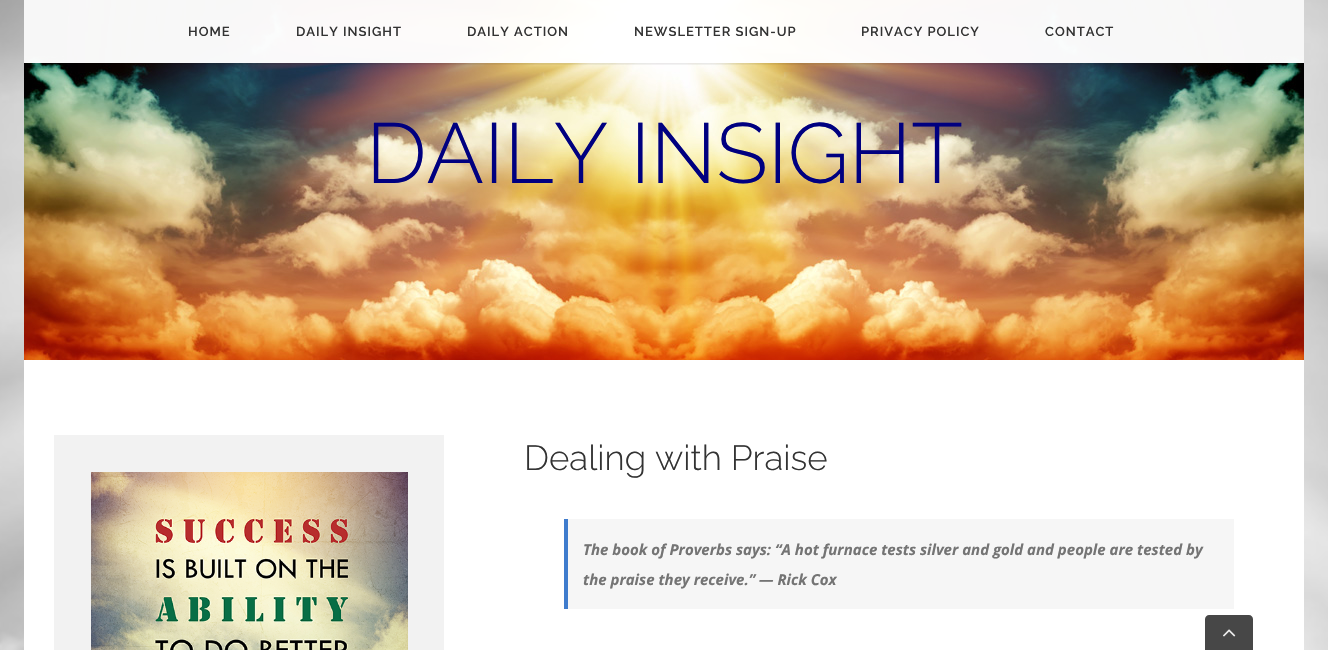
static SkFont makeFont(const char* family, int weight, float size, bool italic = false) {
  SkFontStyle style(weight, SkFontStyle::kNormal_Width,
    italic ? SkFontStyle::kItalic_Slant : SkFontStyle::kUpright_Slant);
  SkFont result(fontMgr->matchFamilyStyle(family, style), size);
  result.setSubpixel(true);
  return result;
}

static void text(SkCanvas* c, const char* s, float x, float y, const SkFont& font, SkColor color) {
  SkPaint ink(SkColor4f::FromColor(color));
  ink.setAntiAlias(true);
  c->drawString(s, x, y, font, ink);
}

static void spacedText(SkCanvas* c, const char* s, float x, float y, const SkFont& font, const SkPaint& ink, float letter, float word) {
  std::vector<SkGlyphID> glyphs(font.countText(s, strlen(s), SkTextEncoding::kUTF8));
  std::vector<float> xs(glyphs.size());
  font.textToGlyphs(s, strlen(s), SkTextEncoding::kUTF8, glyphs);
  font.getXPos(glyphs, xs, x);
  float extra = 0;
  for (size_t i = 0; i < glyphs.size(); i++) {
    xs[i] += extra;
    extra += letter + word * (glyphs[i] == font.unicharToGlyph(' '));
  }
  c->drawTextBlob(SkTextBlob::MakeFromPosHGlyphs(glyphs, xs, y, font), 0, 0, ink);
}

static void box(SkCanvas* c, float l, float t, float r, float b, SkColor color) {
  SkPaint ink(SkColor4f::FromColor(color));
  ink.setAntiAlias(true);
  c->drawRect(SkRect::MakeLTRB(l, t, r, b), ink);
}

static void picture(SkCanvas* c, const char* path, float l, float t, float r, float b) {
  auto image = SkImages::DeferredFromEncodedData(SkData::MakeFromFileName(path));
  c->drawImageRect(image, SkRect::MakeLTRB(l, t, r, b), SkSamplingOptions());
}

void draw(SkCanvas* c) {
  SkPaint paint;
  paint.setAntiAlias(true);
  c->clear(0xffffffff);
  picture(c, "img_01.png", 0, 0, 1328, 650);
  picture(c, "img_02.png", 24, 0, 1304, 360);
  c->save();
  c->clipRect(SkRect::MakeLTRB(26, 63, 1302, 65));
  paint.setColor(0x1f000000);
  paint.setMaskFilter(SkMaskFilter::MakeBlur(kNormal_SkBlurStyle, 1.5f));
  c->drawRect(SkRect::MakeLTRB(27, 7, 1301, 64), paint);
  paint.setMaskFilter(nullptr);
  c->restore();
  box(c, 24, 0, 1304, 63, 0xf7ffffff);
  SkFont face1 = makeFont("Raleway", 600, 13);
  paint.setColor(0xff333333);
  spacedText(c, "HOME", 188, 36, face1, paint, 1, 0);
  spacedText(c, "DAILY INSIGHT", 296, 36, face1, paint, 1, 0);
  spacedText(c, "DAILY ACTION", 467, 36, face1, paint, 1, 0);
  spacedText(c, "NEWSLETTER SIGN-UP", 634, 36, face1, paint, 1, 0);
  spacedText(c, "PRIVACY POLICY", 861, 36, face1, paint, 1, 0);
  spacedText(c, "CONTACT", 1045, 36, face1, paint, 1, 0);
  SkFont face2 = makeFont("Raleway", 300, 85);
  text(c, "DAILY INSIGHT", 366, 183, face2, 0xff000080);
  box(c, 24, 360, 1304, 650, 0xffffffff);
  box(c, 54, 435, 444, 650, 0xfff2f2f2);
  picture(c, "img_03.png", 91, 472, 408, 650);
  SkFont face3 = makeFont("Raleway", 300, 35);
  text(c, "Dealing with Praise", 524, 470, face3, 0xff333333);
  box(c, 568, 519, 1234, 609, 0xfff6f6f6);
  box(c, 564, 519, 568, 609, 0xff3f7ccd);
  SkFont face4 = makeFont("Open Sans", 700, 15, true);
  text(c, "The book of Proverbs says: “A hot furnace tests silver and gold and people are tested by", 583, 555, face4, 0xff747474);
  text(c, "the praise they receive.” — Rick Cox", 583, 585, face4, 0xff747474);
  paint.setColor(0xe6333333);
  c->drawPath(SkPathBuilder().moveTo(1209, 615).lineTo(1249, 615).cubicTo(1251, 615, 1253, 617, 1253, 619).lineTo(1253, 650).lineTo(1205, 650).lineTo(1205, 619).cubicTo(1205, 617, 1207, 615, 1209, 615).close().detach(), paint);
  picture(c, "img_04.png", 1223, 629, 1236, 637);
}
